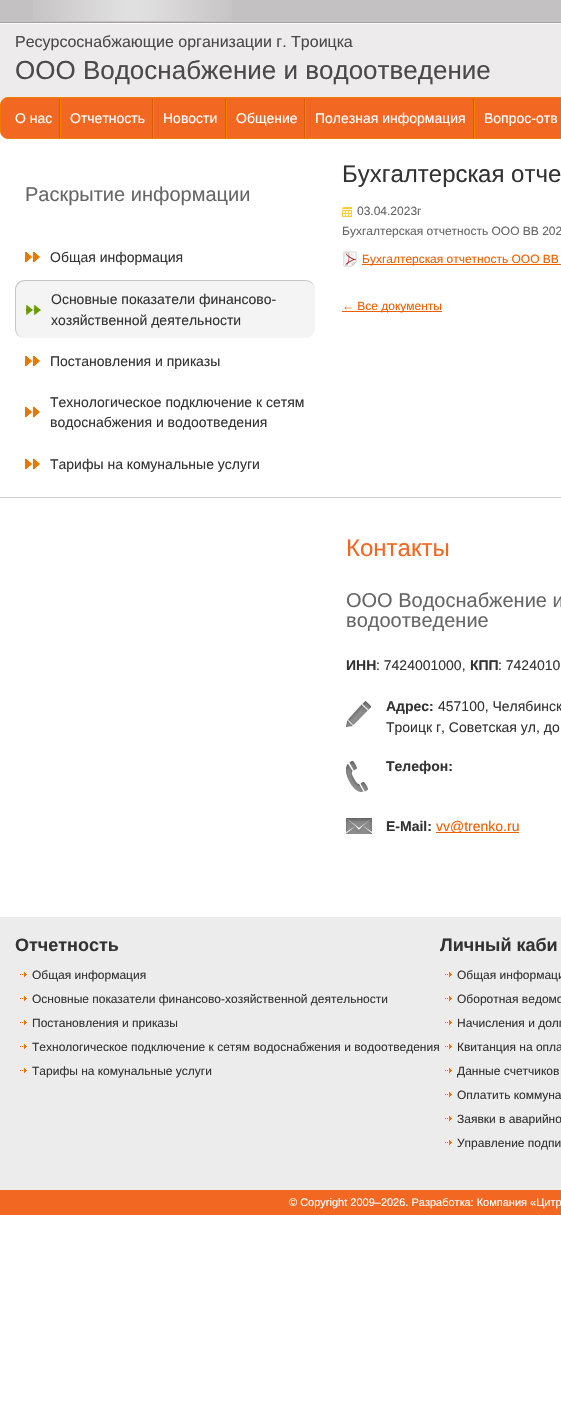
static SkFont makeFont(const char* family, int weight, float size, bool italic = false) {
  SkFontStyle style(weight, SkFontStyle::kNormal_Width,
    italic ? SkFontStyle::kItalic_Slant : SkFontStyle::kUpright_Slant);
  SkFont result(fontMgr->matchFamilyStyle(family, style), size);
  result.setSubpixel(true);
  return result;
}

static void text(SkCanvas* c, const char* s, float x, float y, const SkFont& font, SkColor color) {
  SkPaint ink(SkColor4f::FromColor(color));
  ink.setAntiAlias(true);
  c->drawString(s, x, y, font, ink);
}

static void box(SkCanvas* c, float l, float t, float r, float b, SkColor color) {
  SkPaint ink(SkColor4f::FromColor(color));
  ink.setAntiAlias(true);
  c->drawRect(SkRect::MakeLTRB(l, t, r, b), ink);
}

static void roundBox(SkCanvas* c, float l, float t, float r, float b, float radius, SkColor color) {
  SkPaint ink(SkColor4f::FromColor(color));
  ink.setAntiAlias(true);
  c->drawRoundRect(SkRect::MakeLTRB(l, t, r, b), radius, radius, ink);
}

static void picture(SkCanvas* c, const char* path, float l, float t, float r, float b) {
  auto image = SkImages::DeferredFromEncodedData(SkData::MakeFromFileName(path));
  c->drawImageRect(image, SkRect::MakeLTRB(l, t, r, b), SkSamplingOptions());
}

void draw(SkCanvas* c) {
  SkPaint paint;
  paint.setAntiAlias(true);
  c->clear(0xffffffff);
  picture(c, "img_01.png", 0, 0, 561, 23);
  picture(c, "img_02.png", 33, 0, 232, 21);
  picture(c, "img_03.png", 0, 23, 561, 105);
  SkFont face1 = makeFont("Liberation Sans", 400, 16);
  text(c, "Ресурсоснабжающие организации г. Троицка", 15, 47, face1, 0xff4a4a4a);
  SkFont face2 = makeFont("Liberation Sans", 400, 26);
  text(c, "ООО Водоснабжение и водоотведение", 15, 79, face2, 0xff4a4a4a);
  paint.setColor(0xfff26722);
  c->drawRoundRect(SkRect::MakeLTRB(0.5f, 97.5f, 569.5f, 138.5f), 7.5f, 7.5f, paint);
  paint.setStyle(SkPaint::kStroke_Style);
  paint.setStrokeWidth(1);
  paint.setColor(0xfff07b02);
  c->drawRoundRect(SkRect::MakeLTRB(0.5f, 97.5f, 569.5f, 138.5f), 7.5f, 7.5f, paint);
  picture(c, "img_04.png", 59, 98, 61, 138);
  SkFont face3 = makeFont("Liberation Sans", 400, 14);
  text(c, "О нас", 15, 123, face3, 0xffffffff);
  picture(c, "img_04.png", 152, 98, 154, 138);
  text(c, "Отчетность", 70, 123, face3, 0xffffffff);
  picture(c, "img_04.png", 225, 98, 227, 138);
  text(c, "Новости", 163, 123, face3, 0xffffffff);
  picture(c, "img_04.png", 304, 98, 306, 138);
  text(c, "Общение", 236, 123, face3, 0xffffffff);
  picture(c, "img_04.png", 473, 98, 475, 138);
  text(c, "Полезная информация", 315, 123, face3, 0xffffffff);
  text(c, "Вопрос-отв", 484, 123, face3, 0xffffffff);
  SkFont face4 = makeFont("Liberation Sans", 400, 20);
  text(c, "Раскрытие информации", 25, 201, face4, 0xff666666);
  picture(c, "img_05.png", 25, 252, 40, 262);
  text(c, "Общая информация", 50, 262, face3, 0xff333333);
  roundBox(c, 15, 280, 315, 338, 10, 0xfff4f4f4);
  picture(c, "img_06.png", 26, 305, 41, 315);
  paint.setStyle(SkPaint::kFill_Style);
  paint.setColor(0xffc7c7c7);
  c->drawPath(SkPathBuilder(SkPathFillType::kEvenOdd).moveTo(25, 280).lineTo(305, 280).cubicTo(311, 280, 315, 284, 315, 290).lineTo(315, 328).cubicTo(315, 334, 311, 338, 305, 338).lineTo(25, 338).cubicTo(19, 338, 15, 334, 15, 328).lineTo(15, 290).cubicTo(15, 284, 19, 280, 25, 280).close().moveTo(25, 281).lineTo(305, 281).cubicTo(311, 281, 315, 285, 315, 290).lineTo(315, 328).cubicTo(315, 334, 311, 338, 305, 338).lineTo(25, 338).cubicTo(20, 338, 16, 334, 16, 328).lineTo(16, 290).cubicTo(16, 285, 20, 281, 25, 281).close().detach(), paint);
  text(c, "Основные показатели финансово-", 51, 304, face3, 0xff333333);
  text(c, "хозяйственной деятельности", 51, 325, face3, 0xff333333);
  picture(c, "img_05.png", 25, 356, 40, 366);
  text(c, "Постановления и приказы", 50, 366, face3, 0xff333333);
  picture(c, "img_05.png", 25, 407, 40, 417);
  text(c, "Технологическое подключение к сетям", 50, 407, face3, 0xff333333);
  text(c, "водоснабжения и водоотведения", 50, 427, face3, 0xff333333);
  picture(c, "img_05.png", 25, 459, 40, 469);
  text(c, "Тарифы на комунальные услуги", 50, 469, face3, 0xff333333);
  SkFont face5 = makeFont("Liberation Sans", 400, 24);
  text(c, "Бухгалтерская отче", 342, 182, face5, 0xff333333);
  picture(c, "img_07.png", 342, 207, 352, 217);
  SkFont face6 = makeFont("Liberation Sans", 400, 12);
  text(c, "03.04.2023г", 357, 215, face6, 0xff666666);
  text(c, "Бухгалтерская отчетность ООО ВВ 202", 342, 235, face6, 0xff666666);
  picture(c, "img_08.png", 343, 251, 357, 267);
  box(c, 362, 264, 561, 265, 0xffed5f00);
  text(c, "Бухгалтерская отчетность ООО ВВ", 362, 263, face6, 0xffed5f00);
  box(c, 342, 311, 442, 312, 0xffed5f00);
  text(c, "← Все документы", 342, 310, face6, 0xffed5f00);
  box(c, 0, 497, 561, 498, 0xffcccccc);
  text(c, "Контакты", 346, 556, face5, 0xfff26722);
  text(c, "ООО Водоснабжение и", 346, 607, face4, 0xff666666);
  text(c, "водоотведение", 346, 627, face4, 0xff666666);
  SkFont face7 = makeFont("Liberation Sans", 700, 14);
  text(c, "ИНН", 346, 670, face7, 0xff333333);
  text(c, ": 7424001000,", 376, 670, face3, 0xff333333);
  text(c, "КПП", 470, 670, face7, 0xff333333);
  text(c, ": 7424010", 498, 670, face3, 0xff333333);
  picture(c, "img_09.png", 346, 701, 371, 727);
  text(c, "Адрес:", 386, 711, face7, 0xff333333);
  text(c, "457100, Челябинск", 438, 711, face3, 0xff333333);
  text(c, "Троицк г, Советская ул, до", 386, 732, face3, 0xff333333);
  picture(c, "img_10.png", 346, 761, 368, 792);
  text(c, "Телефон:", 386, 771, face7, 0xff333333);
  picture(c, "img_11.png", 346, 818, 372, 834);
  text(c, "E-Mail:", 386, 831, face7, 0xff333333);
  box(c, 436, 832, 519, 833, 0xffed5f00);
  text(c, "vv@trenko.ru", 436, 831, face3, 0xffed5f00);
  box(c, 0, 917, 561, 1190, 0xffedecec);
  SkFont face8 = makeFont("Liberation Sans", 700, 18);
  text(c, "Отчетность", 15, 951, face8, 0xff333333);
  picture(c, "img_12.png", 20, 972, 27, 977);
  text(c, "Общая информация", 32, 979, face6, 0xff333333);
  picture(c, "img_12.png", 20, 996, 27, 1001);
  text(c, "Основные показатели финансово-хозяйственной деятельности", 32, 1003, face6, 0xff333333);
  picture(c, "img_12.png", 20, 1020, 27, 1025);
  text(c, "Постановления и приказы", 32, 1027, face6, 0xff333333);
  picture(c, "img_12.png", 20, 1044, 27, 1049);
  text(c, "Технологическое подключение к сетям водоснабжения и водоотведения", 32, 1051, face6, 0xff333333);
  picture(c, "img_12.png", 20, 1068, 27, 1073);
  text(c, "Тарифы на комунальные услуги", 32, 1075, face6, 0xff333333);
  text(c, "Личный каби", 440, 951, face8, 0xff333333);
  picture(c, "img_12.png", 445, 972, 452, 977);
  text(c, "Общая информаци", 457, 979, face6, 0xff333333);
  picture(c, "img_12.png", 445, 996, 452, 1001);
  text(c, "Оборотная ведомо", 457, 1003, face6, 0xff333333);
  picture(c, "img_12.png", 445, 1020, 452, 1025);
  text(c, "Начисления и долг", 457, 1027, face6, 0xff333333);
  picture(c, "img_12.png", 445, 1044, 452, 1049);
  text(c, "Квитанция на опла", 457, 1051, face6, 0xff333333);
  picture(c, "img_12.png", 445, 1068, 452, 1073);
  text(c, "Данные счетчиков", 457, 1075, face6, 0xff333333);
  picture(c, "img_12.png", 445, 1092, 452, 1097);
  text(c, "Оплатить коммуна", 457, 1099, face6, 0xff333333);
  picture(c, "img_12.png", 445, 1116, 452, 1121);
  text(c, "Заявки в аварийно", 457, 1123, face6, 0xff333333);
  picture(c, "img_12.png", 445, 1140, 452, 1145);
  text(c, "Управление подпи", 457, 1147, face6, 0xff333333);
  box(c, 0, 1190, 561, 1215, 0xfff26722);
  SkFont face9 = makeFont("Liberation Sans", 400, 11);
  text(c, "© Copyright 2009–2026. Разработка: Компания «Цитр", 289, 1206, face9, 0xffffffff);
}
